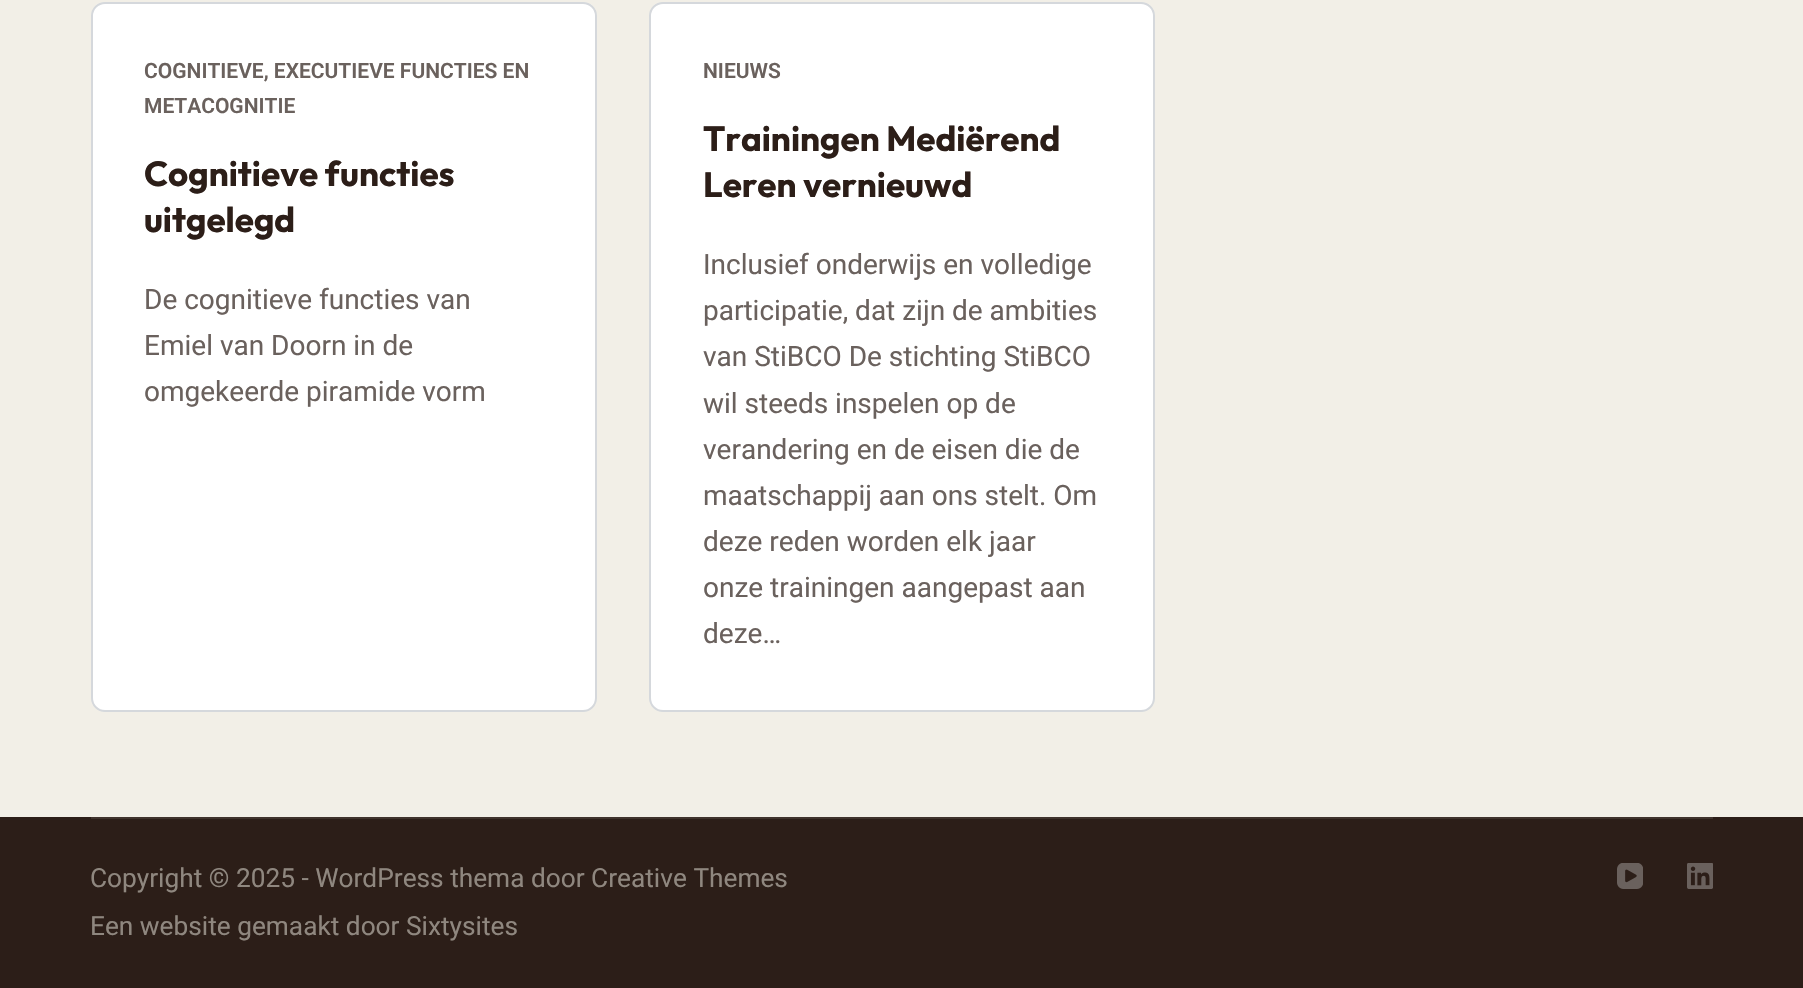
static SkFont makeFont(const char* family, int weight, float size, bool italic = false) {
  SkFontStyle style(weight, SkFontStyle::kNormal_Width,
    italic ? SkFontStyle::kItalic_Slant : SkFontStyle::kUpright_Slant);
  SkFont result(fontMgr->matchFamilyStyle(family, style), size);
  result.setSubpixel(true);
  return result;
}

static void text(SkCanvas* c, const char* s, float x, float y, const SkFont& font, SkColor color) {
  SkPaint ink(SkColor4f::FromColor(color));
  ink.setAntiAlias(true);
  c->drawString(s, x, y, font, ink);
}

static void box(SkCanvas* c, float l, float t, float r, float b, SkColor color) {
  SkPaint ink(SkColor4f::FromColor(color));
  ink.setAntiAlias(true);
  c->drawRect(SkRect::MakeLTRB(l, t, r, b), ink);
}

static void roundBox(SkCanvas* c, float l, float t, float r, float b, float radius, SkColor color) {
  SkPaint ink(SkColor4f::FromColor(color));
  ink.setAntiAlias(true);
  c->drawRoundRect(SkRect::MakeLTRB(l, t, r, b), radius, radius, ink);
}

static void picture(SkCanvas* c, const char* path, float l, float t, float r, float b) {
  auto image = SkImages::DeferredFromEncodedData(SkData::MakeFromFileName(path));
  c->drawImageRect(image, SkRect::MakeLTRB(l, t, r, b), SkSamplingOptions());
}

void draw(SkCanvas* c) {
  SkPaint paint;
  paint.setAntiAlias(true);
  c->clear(0xfff2efe7);
  roundBox(c, 91, 2, 597, 712, 14, 0xffffffff);
  paint.setStyle(SkPaint::kStroke_Style);
  paint.setStrokeWidth(2);
  paint.setColor(0x332c3e50);
  c->drawRoundRect(SkRect::MakeLTRB(92, 3, 596, 711), 13, 13, paint);
  SkFont face1 = makeFont("Roboto", 600, 21);
  text(c, "COGNITIEVE, EXECUTIEVE FUNCTIES EN", 144, 78, face1, 0xff6a615d);
  text(c, "METACOGNITIE", 144, 113, face1, 0xff6a615d);
  SkFont face2 = makeFont("Outfit", 700, 35);
  text(c, "Cognitieve functies", 144, 186, face2, 0xff2c1e18);
  text(c, "uitgelegd", 144, 232, face2, 0xff2c1e18);
  SkFont face3 = makeFont("Roboto", 400, 28);
  text(c, "De cognitieve functies van", 144, 309, face3, 0xff6a615d);
  text(c, "Emiel van Doorn in de", 144, 355, face3, 0xff6a615d);
  text(c, "omgekeerde piramide vorm", 144, 401, face3, 0xff6a615d);
  roundBox(c, 649, 2, 1155, 712, 14, 0xffffffff);
  c->drawRoundRect(SkRect::MakeLTRB(650, 3, 1154, 711), 13, 13, paint);
  text(c, "NIEUWS", 703, 78, face1, 0xff6a615d);
  text(c, "Trainingen Mediërend", 703, 151, face2, 0xff2c1e18);
  text(c, "Leren vernieuwd", 703, 197, face2, 0xff2c1e18);
  text(c, "Inclusief onderwijs en volledige", 703, 274, face3, 0xff6a615d);
  text(c, "participatie, dat zijn de ambities", 703, 320, face3, 0xff6a615d);
  text(c, "van StiBCO De stichting StiBCO", 703, 366, face3, 0xff6a615d);
  text(c, "wil steeds inspelen op de", 703, 413, face3, 0xff6a615d);
  text(c, "verandering en de eisen die de", 703, 459, face3, 0xff6a615d);
  text(c, "maatschappij aan ons stelt. Om", 703, 505, face3, 0xff6a615d);
  text(c, "deze reden worden elk jaar", 703, 551, face3, 0xff6a615d);
  text(c, "onze trainingen aangepast aan", 703, 597, face3, 0xff6a615d);
  text(c, "deze…", 703, 643, face3, 0xff6a615d);
  box(c, 0, 817, 1803, 988, 0xff2c1e18);
  box(c, 91, 817, 1713, 819, 0xff40332d);
  SkFont face4 = makeFont("Roboto", 400, 26.25f);
  text(c, "Copyright © 2025 - WordPress thema door Creative Themes", 90, 887, face4, 0xff8f877f);
  text(c, "Een website gemaakt door Sixtysites", 90, 935, face4, 0xff8f877f);
  picture(c, "img_01.png", 1617, 863, 1643, 889);
  picture(c, "img_02.png", 1687, 863, 1713, 889);
}
